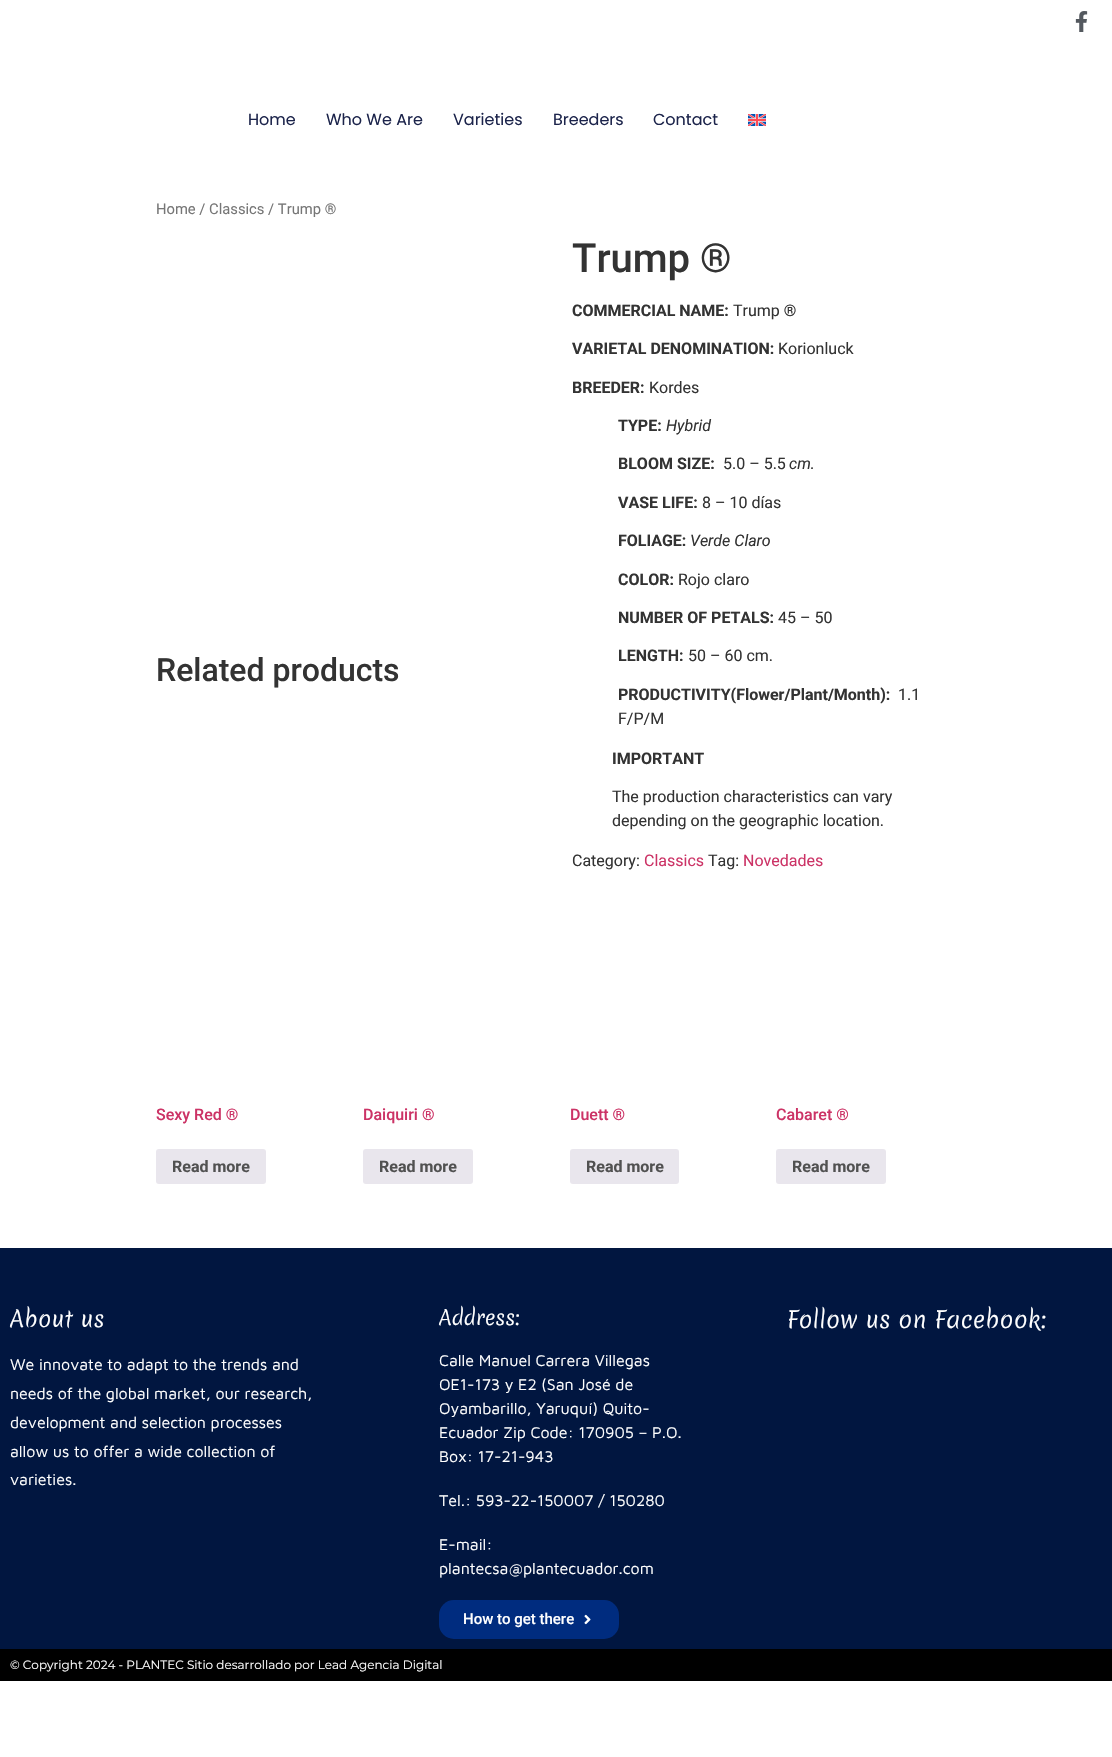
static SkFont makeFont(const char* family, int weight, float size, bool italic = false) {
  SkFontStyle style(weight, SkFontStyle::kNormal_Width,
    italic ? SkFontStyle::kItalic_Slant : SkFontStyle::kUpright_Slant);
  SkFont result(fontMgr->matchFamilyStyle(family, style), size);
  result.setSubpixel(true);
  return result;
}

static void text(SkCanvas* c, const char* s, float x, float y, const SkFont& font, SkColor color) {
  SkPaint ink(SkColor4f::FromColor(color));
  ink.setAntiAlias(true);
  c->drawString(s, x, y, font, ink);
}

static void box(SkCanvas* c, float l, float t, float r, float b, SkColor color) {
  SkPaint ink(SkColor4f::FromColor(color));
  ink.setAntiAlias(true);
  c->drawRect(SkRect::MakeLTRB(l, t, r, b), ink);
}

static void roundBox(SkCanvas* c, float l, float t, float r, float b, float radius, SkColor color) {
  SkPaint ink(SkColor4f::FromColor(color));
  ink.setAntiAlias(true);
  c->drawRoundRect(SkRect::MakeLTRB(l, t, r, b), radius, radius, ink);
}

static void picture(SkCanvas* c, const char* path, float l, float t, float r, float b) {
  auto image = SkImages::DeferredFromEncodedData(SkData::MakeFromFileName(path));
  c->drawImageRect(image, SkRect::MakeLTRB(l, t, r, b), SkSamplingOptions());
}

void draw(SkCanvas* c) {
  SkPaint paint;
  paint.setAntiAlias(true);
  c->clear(0xffffffff);
  picture(c, "img_01.png", 1075, 11, 1088, 32);
  SkFont face1 = makeFont("Poppins", 400, 16);
  text(c, "Home", 248, 125, face1, 0xff1c244b);
  text(c, "Who We Are", 326, 125, face1, 0xff1c244b);
  text(c, "Varieties", 453, 125, face1, 0xff1c244b);
  text(c, "Breeders", 553, 125, face1, 0xff1c244b);
  text(c, "Contact", 653, 125, face1, 0xff1c244b);
  picture(c, "img_02.png", 748, 114, 766, 126);
  SkFont face2 = makeFont("Roboto", 400, 14.75f);
  text(c, "Home / Classics / Trump ®", 156, 214, face2, 0xff767676);
  SkFont face3 = makeFont("Roboto", 500, 40);
  text(c, "Trump ®", 572, 272, face3, 0xff333333);
  SkFont face4 = makeFont("Roboto", 700, 16);
  text(c, "COMMERCIAL NAME:", 572, 316, face4, 0xff333333);
  SkFont face5 = makeFont("Roboto", 400, 16);
  text(c, "Trump ®", 733, 316, face5, 0xff333333);
  text(c, "VARIETAL DENOMINATION:", 572, 354, face4, 0xff333333);
  text(c, "Korionluck", 778, 354, face5, 0xff333333);
  text(c, "BREEDER:", 572, 393, face4, 0xff333333);
  text(c, "Kordes", 649, 393, face5, 0xff333333);
  text(c, "TYPE:", 618, 431, face4, 0xff333333);
  SkFont face6 = makeFont("Roboto", 400, 16, true);
  text(c, "Hybrid", 666, 431, face6, 0xff333333);
  text(c, "BLOOM SIZE:", 618, 469, face4, 0xff333333);
  text(c, "5.0 – 5.5", 723, 469, face5, 0xff333333);
  text(c, "cm.", 789, 469, face6, 0xff333333);
  text(c, "VASE LIFE:", 618, 508, face4, 0xff333333);
  text(c, "8 – 10 días", 702, 508, face5, 0xff333333);
  text(c, "FOLIAGE:", 618, 546, face4, 0xff333333);
  text(c, "Verde Claro", 690, 546, face6, 0xff333333);
  text(c, "COLOR:", 618, 585, face4, 0xff333333);
  text(c, "Rojo claro", 678, 585, face5, 0xff333333);
  text(c, "NUMBER OF PETALS:", 618, 623, face4, 0xff333333);
  text(c, "45 – 50", 778, 623, face5, 0xff333333);
  text(c, "LENGTH:", 618, 661, face4, 0xff333333);
  text(c, "50 – 60 cm.", 688, 661, face5, 0xff333333);
  text(c, "PRODUCTIVITY(Flower/Plant/Month):", 618, 700, face4, 0xff333333);
  text(c, "1.1", 898, 700, face5, 0xff333333);
  text(c, "F/P/M", 618, 724, face5, 0xff333333);
  text(c, "IMPORTANT", 612, 764, face4, 0xff333333);
  text(c, "The production characteristics can vary", 612, 802, face5, 0xff333333);
  text(c, "depending on the geographic location.", 612, 826, face5, 0xff333333);
  text(c, "Category:", 572, 866, face5, 0xff333333);
  text(c, "Classics", 644, 866, face5, 0xffcc3366);
  text(c, "Tag:", 708, 866, face5, 0xff333333);
  text(c, "Novedades", 743, 866, face5, 0xffcc3366);
  SkFont face7 = makeFont("Roboto", 500, 32);
  text(c, "Related products", 156, 681, face7, 0xff333333);
  SkFont face8 = makeFont("Roboto", 500, 16);
  text(c, "Sexy Red ®", 156, 1120, face8, 0xffcc3366);
  roundBox(c, 156, 1149, 266, 1184, 3, 0xffe9e6ed);
  text(c, "Read more", 172, 1172, face4, 0xff515151);
  text(c, "Daiquiri ®", 363, 1120, face8, 0xffcc3366);
  roundBox(c, 363, 1149, 473, 1184, 3, 0xffe9e6ed);
  text(c, "Read more", 379, 1172, face4, 0xff515151);
  text(c, "Duett ®", 570, 1120, face8, 0xffcc3366);
  roundBox(c, 570, 1149, 679, 1184, 3, 0xffe9e6ed);
  text(c, "Read more", 586, 1172, face4, 0xff515151);
  text(c, "Cabaret ®", 776, 1120, face8, 0xffcc3366);
  roundBox(c, 776, 1149, 886, 1184, 3, 0xffe9e6ed);
  text(c, "Read more", 792, 1172, face4, 0xff515151);
  box(c, 0, 1248, 1112, 1649, 0xff011640);
  SkFont face9 = makeFont("Merienda", 300, 22);
  text(c, "About us", 10, 1327, face9, 0xffffffff);
  SkFont face10 = makeFont("Maven Pro", 400, 16);
  text(c, "We innovate to adapt to the trends and", 10, 1370, face10, 0xffffffff);
  text(c, "needs of the global market, our research,", 10, 1399, face10, 0xffffffff);
  text(c, "development and selection processes", 10, 1428, face10, 0xffffffff);
  text(c, "allow us to offer a wide collection of", 10, 1457, face10, 0xffffffff);
  text(c, "varieties.", 10, 1485, face10, 0xffffffff);
  SkFont face11 = makeFont("Merienda", 300, 20);
  text(c, "Address:", 439, 1325, face11, 0xffffffff);
  text(c, "Calle Manuel Carrera Villegas", 439, 1366, face10, 0xffffffff);
  text(c, "OE1-173 y E2 (San José de", 439, 1390, face10, 0xffffffff);
  text(c, "Oyambarillo, Yaruquí) Quito-", 439, 1414, face10, 0xffffffff);
  text(c, "Ecuador Zip Code: 170905 – P.O.", 439, 1438, face10, 0xffffffff);
  text(c, "Box: 17-21-943", 439, 1462, face10, 0xffffffff);
  text(c, "Tel.: 593-22-150007 / 150280", 439, 1506, face10, 0xffffffff);
  text(c, "E-mail:", 439, 1550, face10, 0xffffffff);
  text(c, "plantecsa@plantecuador.com", 439, 1574, face10, 0xffffffff);
  roundBox(c, 439, 1600, 619, 1639, 15, 0xff002c7f);
  SkFont face12 = makeFont("Roboto", 500, 15);
  text(c, "How to get there", 463, 1624, face12, 0xffffffff);
  picture(c, "img_03.png", 584, 1614, 591, 1625);
  SkFont face13 = makeFont("Merienda", 300, 23);
  text(c, "Follow us on Facebook:", 787, 1328, face13, 0xffffffff);
  box(c, 0, 1649, 1112, 1681, 0xff000000);
  SkFont face14 = makeFont("Montserrat", 400, 12);
  text(c, "© Copyright 2024 - PLANTEC Sitio desarrollado por Lead Agencia Digital", 10, 1669, face14, 0xffffffff);
}
